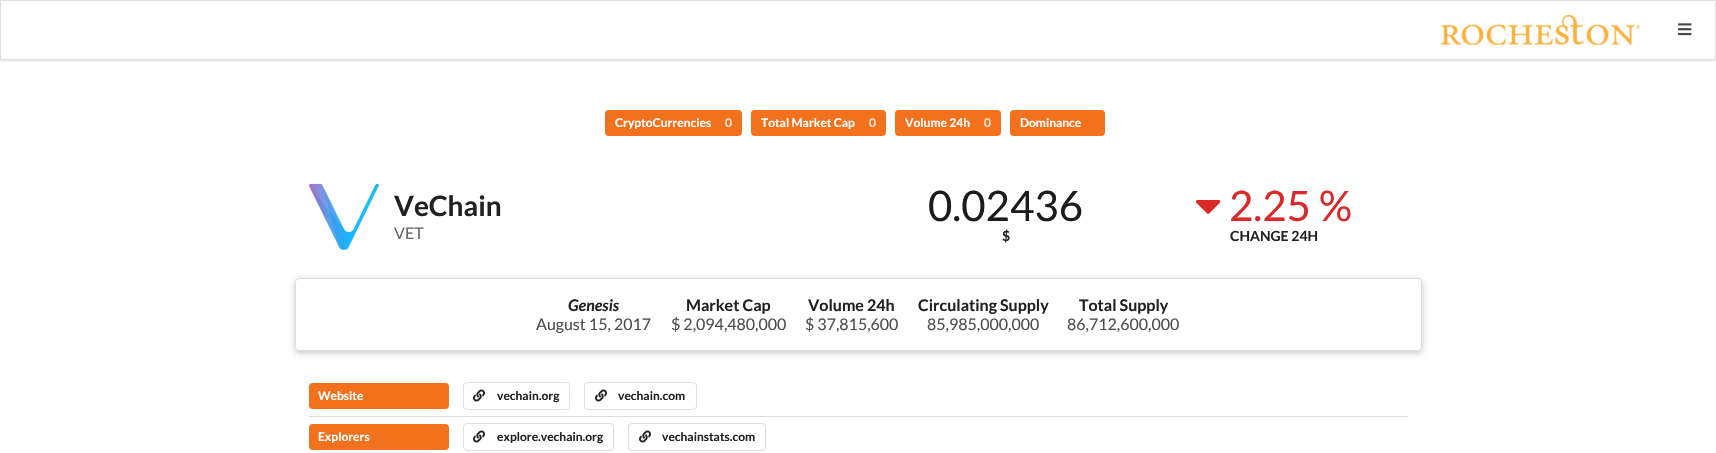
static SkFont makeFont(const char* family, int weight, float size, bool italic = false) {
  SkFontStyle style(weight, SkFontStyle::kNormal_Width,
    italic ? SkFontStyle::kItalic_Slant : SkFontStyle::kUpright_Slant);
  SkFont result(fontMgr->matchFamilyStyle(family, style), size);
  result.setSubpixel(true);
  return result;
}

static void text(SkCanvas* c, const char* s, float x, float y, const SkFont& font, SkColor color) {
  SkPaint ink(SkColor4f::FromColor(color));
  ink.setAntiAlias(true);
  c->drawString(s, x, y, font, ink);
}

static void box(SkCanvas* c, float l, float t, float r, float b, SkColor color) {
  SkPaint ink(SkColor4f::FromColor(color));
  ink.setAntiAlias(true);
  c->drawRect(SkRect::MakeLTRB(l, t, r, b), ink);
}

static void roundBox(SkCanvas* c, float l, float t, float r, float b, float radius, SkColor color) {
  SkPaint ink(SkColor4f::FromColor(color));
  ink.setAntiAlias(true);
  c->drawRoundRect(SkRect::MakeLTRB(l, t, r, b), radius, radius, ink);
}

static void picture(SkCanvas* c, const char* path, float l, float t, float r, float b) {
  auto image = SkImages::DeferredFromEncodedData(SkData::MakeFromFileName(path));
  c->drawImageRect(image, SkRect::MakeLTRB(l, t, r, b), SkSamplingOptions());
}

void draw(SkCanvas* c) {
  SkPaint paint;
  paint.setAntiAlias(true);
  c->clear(0xffffffff);
  c->save();
  c->clipRect(SkRect::MakeLTRB(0, 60, 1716, 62));
  paint.setColor(0x26222426);
  paint.setMaskFilter(SkMaskFilter::MakeBlur(kNormal_SkBlurStyle, 1));
  c->drawRect(SkRect::MakeLTRB(0, 1, 1716, 61), paint);
  paint.setMaskFilter(nullptr);
  c->restore();
  paint.setStyle(SkPaint::kStroke_Style);
  paint.setStrokeWidth(1);
  paint.setColor(0xffdedede);
  c->drawRect(SkRect::MakeLTRB(0.5f, 0.5f, 1715.5f, 59.5f), paint);
  picture(c, "img_01.png", 1440, 15, 1640, 45);
  picture(c, "img_02.png", 1678, 23, 1692, 36);
  roundBox(c, 605, 110, 742, 136, 4, 0xfff2711c);
  SkFont face1 = makeFont("Lato", 700, 12);
  text(c, "CryptoCurrencies", 615, 127, face1, 0xffffffff);
  text(c, "0", 725, 127, face1, 0xfffce3d2);
  roundBox(c, 751, 110, 886, 136, 4, 0xfff2711c);
  text(c, "Total Market Cap", 761, 127, face1, 0xffffffff);
  text(c, "0", 869, 127, face1, 0xfffce3d2);
  roundBox(c, 895, 110, 1001, 136, 4, 0xfff2711c);
  text(c, "Volume 24h", 905, 127, face1, 0xffffffff);
  text(c, "0", 984, 127, face1, 0xfffce3d2);
  roundBox(c, 1010, 110, 1105, 136, 4, 0xfff2711c);
  text(c, "Dominance", 1020, 127, face1, 0xffffffff);
  picture(c, "img_03.png", 308, 183, 379, 250);
  SkFont face2 = makeFont("Lato", 700, 28);
  text(c, "VeChain", 394, 216, face2, 0xff212121);
  SkFont face3 = makeFont("Lato", 400, 16);
  text(c, "VET", 394, 239, face3, 0xff666666);
  SkFont face4 = makeFont("Lato", 400, 42);
  text(c, "0.02436", 928, 221, face4, 0xff1b1c1d);
  SkFont face5 = makeFont("Lato", 700, 14);
  text(c, "$", 1002, 241, face5, 0xff212121);
  picture(c, "img_04.png", 1196, 200, 1221, 214);
  text(c, "2.25 %", 1229, 221, face4, 0xffdb2828);
  text(c, "CHANGE 24H", 1230, 241, face5, 0xff212121);
  paint.setStyle(SkPaint::kFill_Style);
  paint.setColor(0x26222426);
  paint.setMaskFilter(SkMaskFilter::MakeBlur(kNormal_SkBlurStyle, 5));
  c->drawRoundRect(SkRect::MakeLTRB(295, 280, 1422, 353), 4, 4, paint);
  paint.setMaskFilter(nullptr);
  paint.setColor(0x1f222426);
  paint.setMaskFilter(SkMaskFilter::MakeBlur(kNormal_SkBlurStyle, 2));
  c->drawRoundRect(SkRect::MakeLTRB(295, 280, 1422, 353), 4, 4, paint);
  paint.setMaskFilter(nullptr);
  roundBox(c, 295, 278, 1422, 351, 4, 0xffffffff);
  paint.setStyle(SkPaint::kStroke_Style);
  paint.setColor(0x26222426);
  c->drawRoundRect(SkRect::MakeLTRB(295.5f, 278.5f, 1421.5f, 350.5f), 3.5f, 3.5f, paint);
  SkFont face6 = makeFont("Lato", 700, 16, true);
  text(c, "Genesis", 568, 311, face6, 0xff212121);
  text(c, "August 15, 2017", 536, 330, face3, 0xff4d4d4d);
  SkFont face7 = makeFont("Lato", 700, 16);
  text(c, "Market Cap", 686, 311, face7, 0xff212121);
  text(c, "$ 2,094,480,000", 671, 330, face3, 0xff4d4d4d);
  text(c, "Volume 24h", 808, 311, face7, 0xff212121);
  text(c, "$ 37,815,600", 805, 330, face3, 0xff4d4d4d);
  text(c, "Circulating Supply", 918, 311, face7, 0xff212121);
  text(c, "85,985,000,000", 927, 330, face3, 0xff4d4d4d);
  text(c, "Total Supply", 1079, 311, face7, 0xff212121);
  text(c, "86,712,600,000", 1067, 330, face3, 0xff4d4d4d);
  roundBox(c, 309, 383, 449, 409, 4, 0xfff2711c);
  text(c, "Website", 318, 400, face1, 0xffffffff);
  paint.setColor(0xffdedede);
  c->drawRoundRect(SkRect::MakeLTRB(463.5f, 382.5f, 569.5f, 409.5f), 3.5f, 3.5f, paint);
  picture(c, "img_05.png", 473, 389, 485, 402);
  text(c, "vechain.org", 497, 400, face1, 0xff212121);
  c->drawRoundRect(SkRect::MakeLTRB(584.5f, 382.5f, 696.5f, 409.5f), 3.5f, 3.5f, paint);
  picture(c, "img_05.png", 595, 389, 607, 402);
  text(c, "vechain.com", 618, 400, face1, 0xff212121);
  box(c, 309, 416, 1408, 417, 0xffdedede);
  roundBox(c, 309, 424, 449, 450, 4, 0xfff2711c);
  text(c, "Explorers", 318, 441, face1, 0xffffffff);
  c->drawRoundRect(SkRect::MakeLTRB(463.5f, 423.5f, 613.5f, 450.5f), 3.5f, 3.5f, paint);
  picture(c, "img_05.png", 473, 430, 485, 443);
  text(c, "explore.vechain.org", 497, 441, face1, 0xff212121);
  c->drawRoundRect(SkRect::MakeLTRB(628.5f, 423.5f, 765.5f, 450.5f), 3.5f, 3.5f, paint);
  picture(c, "img_05.png", 639, 430, 651, 443);
  text(c, "vechainstats.com", 662, 441, face1, 0xff212121);
}
